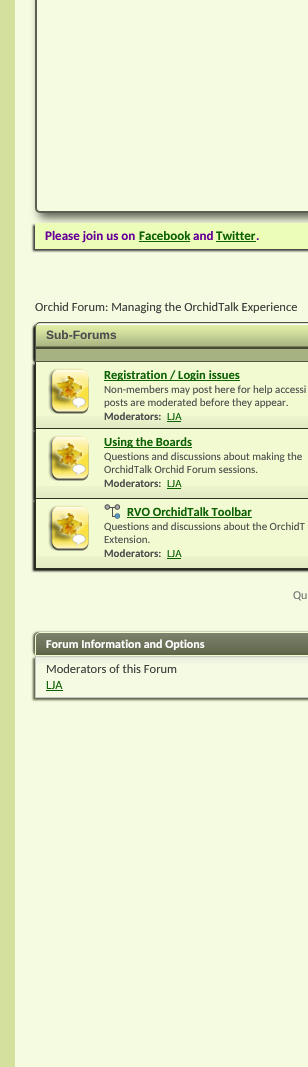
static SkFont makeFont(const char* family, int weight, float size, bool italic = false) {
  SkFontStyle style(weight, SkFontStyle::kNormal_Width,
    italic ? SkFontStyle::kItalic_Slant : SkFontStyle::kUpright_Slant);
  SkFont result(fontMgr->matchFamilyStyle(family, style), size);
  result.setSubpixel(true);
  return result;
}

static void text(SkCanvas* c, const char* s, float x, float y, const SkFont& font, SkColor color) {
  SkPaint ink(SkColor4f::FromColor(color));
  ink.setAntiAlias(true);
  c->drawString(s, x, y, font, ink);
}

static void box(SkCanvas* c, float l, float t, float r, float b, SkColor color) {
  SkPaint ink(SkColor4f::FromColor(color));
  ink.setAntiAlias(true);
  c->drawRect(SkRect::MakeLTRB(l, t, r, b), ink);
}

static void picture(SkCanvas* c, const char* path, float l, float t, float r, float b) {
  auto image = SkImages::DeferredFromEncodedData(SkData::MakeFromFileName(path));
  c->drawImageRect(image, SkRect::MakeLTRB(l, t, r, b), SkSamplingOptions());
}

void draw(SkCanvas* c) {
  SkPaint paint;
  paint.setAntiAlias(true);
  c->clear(0xffd3e19d);
  box(c, 15, 0, 308, 1067, 0xfff4fbe0);
  paint.setColor(0x99000000);
  paint.setMaskFilter(SkMaskFilter::MakeBlur(kNormal_SkBlurStyle, 4));
  c->drawRoundRect(SkRect::MakeLTRB(39, -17, 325, 218), 5, 5, paint);
  paint.setMaskFilter(nullptr);
  paint.setColor(0xfff4fbe0);
  c->drawRoundRect(SkRect::MakeLTRB(36, -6, 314, 212), 4, 4, paint);
  paint.setStyle(SkPaint::kStroke_Style);
  paint.setStrokeWidth(2);
  paint.setColor(0xff596050);
  c->drawRoundRect(SkRect::MakeLTRB(36, -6, 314, 212), 4, 4, paint);
  paint.setStyle(SkPaint::kFill_Style);
  paint.setColor(0xff3e3e3e);
  paint.setMaskFilter(SkMaskFilter::MakeBlur(kNormal_SkBlurStyle, 1));
  c->drawRect(SkRect::MakeLTRB(33, 225, 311, 251), paint);
  paint.setMaskFilter(nullptr);
  box(c, 35, 223, 308, 249, 0xffebfdb6);
  SkFont face1 = makeFont("Carlito", 700, 13);
  text(c, "Please join us on", 45, 240, face1, 0xff660099);
  text(c, "Facebook", 139, 240, face1, 0xff0e6205);
  box(c, 139, 241, 190, 242, 0xff0e6205);
  text(c, "and", 193, 240, face1, 0xff660099);
  text(c, "Twitter", 216, 240, face1, 0xff0e6205);
  text(c, ".", 256, 240, face1, 0xff660099);
  box(c, 216, 241, 256, 242, 0xff0e6205);
  SkFont face2 = makeFont("Carlito", 400, 12.5f);
  text(c, "Orchid Forum: Managing the OrchidTalk Experience", 35, 311, face2, 0xff3e3e3e);
  paint.setColor(0xff141711);
  paint.setMaskFilter(SkMaskFilter::MakeBlur(kNormal_SkBlurStyle, 1));
  c->drawRoundRect(SkRect::MakeLTRB(33, 324, 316, 364), 5, 5, paint);
  paint.setMaskFilter(nullptr);
  paint.setColor(0xffa6b281);
  c->drawPath(SkPathBuilder().moveTo(40, 322).lineTo(308, 322).cubicTo(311, 322, 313, 324, 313, 327).lineTo(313, 362).lineTo(35, 362).lineTo(35, 327).cubicTo(35, 324, 37, 322, 40, 322).close().detach(), paint);
  picture(c, "img_01.png", 35, 323, 308, 349);
  paint.setStyle(SkPaint::kStroke_Style);
  paint.setStrokeWidth(1);
  paint.setColor(0xff535549);
  c->drawPath(SkPathBuilder().moveTo(40, 322.5f).lineTo(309, 322.5f).cubicTo(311.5f, 322.5f, 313.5f, 324.5f, 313.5f, 327).lineTo(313.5f, 361.5f).lineTo(35.5f, 361.5f).lineTo(35.5f, 327).cubicTo(35.5f, 324.5f, 37.5f, 322.5f, 40, 322.5f).close().detach(), paint);
  SkFont face3 = makeFont("Liberation Sans", 700, 12);
  text(c, "Sub-Forums", 46, 339, face3, 0xff4e4e4e);
  paint.setStyle(SkPaint::kFill_Style);
  paint.setColor(0xff141711);
  paint.setMaskFilter(SkMaskFilter::MakeBlur(kNormal_SkBlurStyle, 1));
  c->drawRect(SkRect::MakeLTRB(33, 364, 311, 431), paint);
  paint.setMaskFilter(nullptr);
  box(c, 36, 362, 308, 428, 0xfff1fad0);
  picture(c, "img_02.png", 36, 416, 308, 428);
  box(c, 35, 428, 308, 429, 0xff2b3123);
  box(c, 35, 362, 36, 429, 0xff2b3123);
  picture(c, "img_03.png", 48, 368, 89, 414);
  box(c, 104, 380, 240, 381, 0xff0e6205);
  SkFont face4 = makeFont("Carlito", 700, 12.5f);
  text(c, "Registration / Login issues", 104, 379, face4, 0xff0e6205);
  SkFont face5 = makeFont("Carlito", 400, 11);
  text(c, "Non-members may post here for help accessi", 104, 393, face5, 0xff4e4e4e);
  text(c, "posts are moderated before they appear.", 104, 406, face5, 0xff4e4e4e);
  SkFont face6 = makeFont("Carlito", 700, 11);
  text(c, "Moderators:", 104, 420, face6, 0xff4e4e4e);
  text(c, "LJA", 167, 420, face5, 0xff0e6205);
  box(c, 167, 421, 181, 422, 0xff0e6205);
  paint.setMaskFilter(SkMaskFilter::MakeBlur(kNormal_SkBlurStyle, 1));
  c->drawRect(SkRect::MakeLTRB(33, 431, 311, 501), paint);
  paint.setMaskFilter(nullptr);
  box(c, 36, 429, 308, 498, 0xfff1fad0);
  picture(c, "img_02.png", 36, 486, 308, 498);
  box(c, 35, 498, 308, 499, 0xff2b3123);
  box(c, 35, 429, 36, 499, 0xff2b3123);
  picture(c, "img_03.png", 48, 435, 89, 481);
  box(c, 104, 447, 192, 448, 0xff0e6205);
  text(c, "Using the Boards", 104, 446, face4, 0xff0e6205);
  text(c, "Questions and discussions about making the", 104, 460, face5, 0xff4e4e4e);
  text(c, "OrchidTalk Orchid Forum sessions.", 104, 473, face5, 0xff4e4e4e);
  text(c, "Moderators:", 104, 487, face6, 0xff4e4e4e);
  text(c, "LJA", 167, 487, face5, 0xff0e6205);
  box(c, 167, 488, 181, 489, 0xff0e6205);
  paint.setMaskFilter(SkMaskFilter::MakeBlur(kNormal_SkBlurStyle, 1));
  c->drawRect(SkRect::MakeLTRB(33, 501, 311, 571), paint);
  paint.setMaskFilter(nullptr);
  box(c, 36, 499, 308, 568, 0xfff1fad0);
  picture(c, "img_02.png", 36, 556, 308, 568);
  box(c, 35, 568, 308, 569, 0xff2b3123);
  box(c, 35, 499, 36, 569, 0xff2b3123);
  picture(c, "img_03.png", 48, 505, 89, 551);
  picture(c, "img_04.png", 104, 504, 120, 519);
  text(c, "RVO OrchidTalk Toolbar", 127, 516, face4, 0xff0e6205);
  box(c, 127, 517, 252, 518, 0xff0e6205);
  text(c, "Questions and discussions about the OrchidT", 104, 530, face5, 0xff4e4e4e);
  text(c, "Extension.", 104, 543, face5, 0xff4e4e4e);
  text(c, "Moderators:", 104, 557, face6, 0xff4e4e4e);
  text(c, "LJA", 167, 557, face5, 0xff0e6205);
  box(c, 167, 558, 181, 559, 0xff0e6205);
  SkFont face7 = makeFont("Carlito", 400, 12);
  text(c, "Qu", 293, 599, face7, 0xff777777);
  paint.setColor(0xff5d6449);
  paint.setMaskFilter(SkMaskFilter::MakeBlur(kNormal_SkBlurStyle, 1));
  c->drawRect(SkRect::MakeLTRB(33, 658, 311, 700), paint);
  paint.setMaskFilter(nullptr);
  box(c, 36, 656, 308, 697, 0xfff4fbe2);
  picture(c, "img_06.png", 36, 656, 308, 664);
  box(c, 35, 697, 308, 698, 0xffc4c4c4);
  box(c, 35, 656, 36, 698, 0xffc4c4c4);
  paint.setMaskFilter(SkMaskFilter::MakeBlur(kNormal_SkBlurStyle, 1));
  c->drawRoundRect(SkRect::MakeLTRB(33, 632, 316, 656), 5, 5, paint);
  paint.setMaskFilter(nullptr);
  paint.setColor(0xff5d6448);
  c->drawPath(SkPathBuilder().moveTo(40, 632).lineTo(308, 632).cubicTo(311, 632, 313, 634, 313, 637).lineTo(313, 656).lineTo(35, 656).lineTo(35, 637).cubicTo(35, 634, 37, 632, 40, 632).close().detach(), paint);
  picture(c, "img_05.png", 35, 633, 308, 653);
  paint.setStyle(SkPaint::kStroke_Style);
  paint.setColor(0xfff1fbd4);
  c->drawPath(SkPathBuilder().moveTo(40, 632.5f).lineTo(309, 632.5f).cubicTo(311.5f, 632.5f, 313.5f, 634.5f, 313.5f, 637).lineTo(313.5f, 655.5f).lineTo(35.5f, 655.5f).lineTo(35.5f, 637).cubicTo(35.5f, 634.5f, 37.5f, 632.5f, 40, 632.5f).close().detach(), paint);
  SkFont face8 = makeFont("Carlito", 700, 12);
  text(c, "Forum Information and Options", 46, 648, face8, 0xffffffff);
  text(c, "Moderators of this Forum", 46, 673, face2, 0xff3e3e3e);
  text(c, "LJA", 46, 689, face2, 0xff0e6205);
  box(c, 46, 690, 63, 691, 0xff0e6205);
}
